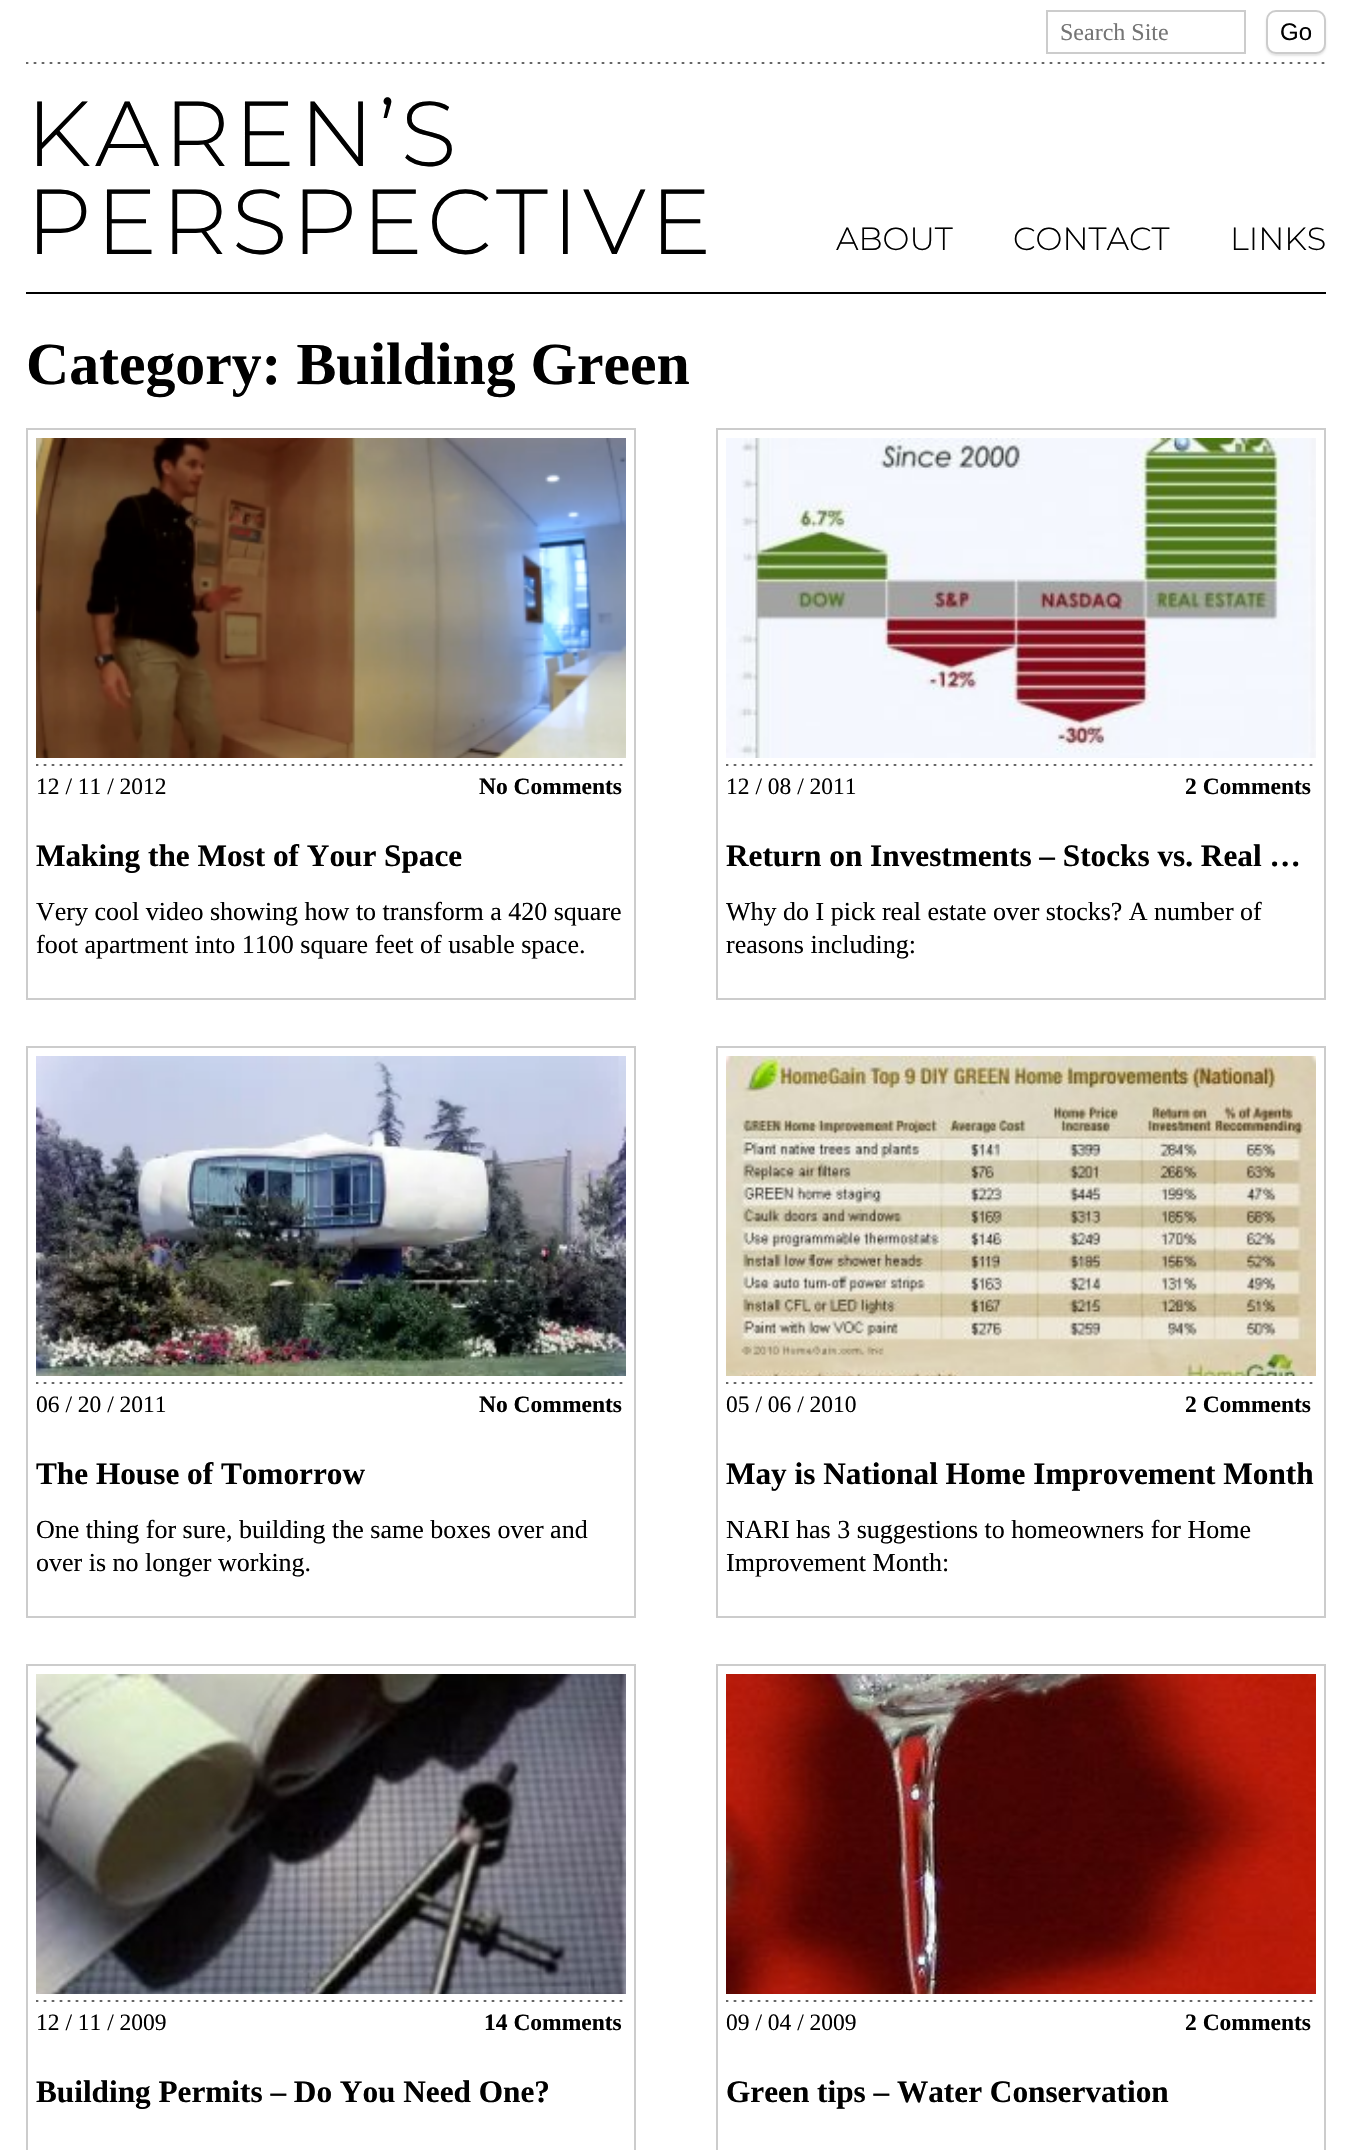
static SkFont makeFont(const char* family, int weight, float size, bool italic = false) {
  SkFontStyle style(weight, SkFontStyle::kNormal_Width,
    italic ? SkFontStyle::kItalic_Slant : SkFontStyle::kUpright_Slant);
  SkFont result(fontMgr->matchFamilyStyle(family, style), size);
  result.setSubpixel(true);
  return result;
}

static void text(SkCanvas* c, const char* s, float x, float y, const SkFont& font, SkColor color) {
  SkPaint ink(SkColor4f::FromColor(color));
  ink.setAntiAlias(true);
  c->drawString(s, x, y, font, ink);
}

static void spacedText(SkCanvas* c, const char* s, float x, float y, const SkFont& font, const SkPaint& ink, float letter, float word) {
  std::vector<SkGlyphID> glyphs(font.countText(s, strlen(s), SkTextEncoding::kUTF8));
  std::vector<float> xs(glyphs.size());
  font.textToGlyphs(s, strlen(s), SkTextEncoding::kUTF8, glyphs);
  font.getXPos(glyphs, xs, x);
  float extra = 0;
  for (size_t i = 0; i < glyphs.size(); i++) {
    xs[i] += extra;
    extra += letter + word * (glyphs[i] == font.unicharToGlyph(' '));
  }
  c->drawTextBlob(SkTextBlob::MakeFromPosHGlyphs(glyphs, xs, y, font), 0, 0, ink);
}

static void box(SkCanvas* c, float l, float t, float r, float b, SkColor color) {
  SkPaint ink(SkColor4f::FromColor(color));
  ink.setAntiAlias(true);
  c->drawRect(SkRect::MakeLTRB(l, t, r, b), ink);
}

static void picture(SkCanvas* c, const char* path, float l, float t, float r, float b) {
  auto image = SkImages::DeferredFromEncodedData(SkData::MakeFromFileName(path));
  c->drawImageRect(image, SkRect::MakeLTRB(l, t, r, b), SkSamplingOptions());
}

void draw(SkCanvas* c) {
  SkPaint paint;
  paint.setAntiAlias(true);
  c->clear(0xffffffff);
  picture(c, "img_01.png", 26, 62, 1325, 64);
  paint.setStyle(SkPaint::kStroke_Style);
  paint.setStrokeWidth(2);
  paint.setColor(0xffcccccc);
  c->drawRect(SkRect::MakeLTRB(1047, 11, 1245, 53), paint);
  SkFont face1 = makeFont("Liberation Serif", 400, 24);
  text(c, "Search Site", 1060, 40, face1, 0xff757575);
  paint.setStyle(SkPaint::kFill_Style);
  paint.setColor(0x1a000000);
  paint.setMaskFilter(SkMaskFilter::MakeBlur(kNormal_SkBlurStyle, 1));
  c->drawRoundRect(SkRect::MakeLTRB(1266, 12, 1326, 56), 10, 10, paint);
  paint.setMaskFilter(nullptr);
  paint.setColor(0xffffffff);
  c->drawRoundRect(SkRect::MakeLTRB(1267, 11, 1325, 53), 9, 9, paint);
  paint.setStyle(SkPaint::kStroke_Style);
  paint.setColor(0xffcccccc);
  c->drawRoundRect(SkRect::MakeLTRB(1267, 11, 1325, 53), 9, 9, paint);
  SkFont face2 = makeFont("Liberation Sans", 400, 24);
  text(c, "Go", 1280, 40, face2, 0xff000000);
  box(c, 26, 292, 1326, 294, 0xff000000);
  SkFont face3 = makeFont("Montserrat", 300, 92);
  paint.setStyle(SkPaint::kFill_Style);
  paint.setColor(0xff000000);
  spacedText(c, "KAREN’S", 26, 166, face3, paint, 4, 0);
  spacedText(c, "PERSPECTIVE", 26, 254, face3, paint, 4, 0);
  SkFont face4 = makeFont("Montserrat", 300, 32);
  text(c, "ABOUT", 836, 250, face4, 0xff000000);
  text(c, "CONTACT", 1013, 250, face4, 0xff000000);
  text(c, "LINKS", 1230, 250, face4, 0xff000000);
  SkFont face5 = makeFont("Liberation Serif", 700, 59.75f);
  text(c, "Category: Building Green", 26, 384, face5, 0xff000000);
  paint.setStyle(SkPaint::kStroke_Style);
  paint.setColor(0xffcccccc);
  c->drawRect(SkRect::MakeLTRB(27, 429, 635, 999), paint);
  picture(c, "img_02.png", 36, 764, 623, 766);
  picture(c, "img_03.png", 36, 438, 626, 758);
  SkFont face6 = makeFont("Liberation Serif", 400, 23.5f);
  text(c, "12 / 11 / 2012", 36, 794, face6, 0xff000000);
  SkFont face7 = makeFont("Liberation Serif", 700, 23.5f);
  text(c, "No Comments", 479, 794, face7, 0xff000000);
  SkFont face8 = makeFont("Liberation Serif", 700, 31.25f);
  text(c, "Making the Most of Your Space", 36, 866, face8, 0xff000000);
  SkFont face9 = makeFont("Liberation Serif", 400, 26);
  text(c, "Very cool video showing how to transform a 420 square", 36, 920, face9, 0xff000000);
  text(c, "foot apartment into 1100 square feet of usable space.", 36, 953, face9, 0xff000000);
  c->drawRect(SkRect::MakeLTRB(717, 429, 1325, 999), paint);
  picture(c, "img_02.png", 726, 764, 1313, 766);
  picture(c, "img_04.png", 726, 438, 1316, 758);
  text(c, "12 / 08 / 2011", 726, 794, face6, 0xff000000);
  text(c, "2 Comments", 1185, 794, face7, 0xff000000);
  text(c, "Return on Investments – Stocks vs. Real …", 726, 866, face8, 0xff000000);
  text(c, "Why do I pick real estate over stocks? A number of", 726, 920, face9, 0xff000000);
  text(c, "reasons including:", 726, 953, face9, 0xff000000);
  c->drawRect(SkRect::MakeLTRB(27, 1047, 635, 1617), paint);
  picture(c, "img_02.png", 36, 1382, 623, 1384);
  picture(c, "img_05.png", 36, 1056, 626, 1376);
  text(c, "06 / 20 / 2011", 36, 1412, face6, 0xff000000);
  text(c, "No Comments", 479, 1412, face7, 0xff000000);
  text(c, "The House of Tomorrow", 36, 1484, face8, 0xff000000);
  text(c, "One thing for sure, building the same boxes over and", 36, 1538, face9, 0xff000000);
  text(c, "over is no longer working.", 36, 1571, face9, 0xff000000);
  c->drawRect(SkRect::MakeLTRB(717, 1047, 1325, 1617), paint);
  picture(c, "img_02.png", 726, 1382, 1313, 1384);
  picture(c, "img_06.png", 726, 1056, 1316, 1376);
  text(c, "05 / 06 / 2010", 726, 1412, face6, 0xff000000);
  text(c, "2 Comments", 1185, 1412, face7, 0xff000000);
  text(c, "May is National Home Improvement Month", 726, 1484, face8, 0xff000000);
  text(c, "NARI has 3 suggestions to homeowners for Home", 726, 1538, face9, 0xff000000);
  text(c, "Improvement Month:", 726, 1571, face9, 0xff000000);
  c->drawRect(SkRect::MakeLTRB(27, 1665, 635, 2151), paint);
  picture(c, "img_02.png", 36, 2000, 623, 2002);
  picture(c, "img_07.png", 36, 1674, 626, 1994);
  text(c, "12 / 11 / 2009", 36, 2030, face6, 0xff000000);
  text(c, "14 Comments", 484, 2030, face7, 0xff000000);
  text(c, "Building Permits – Do You Need One?", 36, 2102, face8, 0xff000000);
  c->drawRect(SkRect::MakeLTRB(717, 1665, 1325, 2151), paint);
  picture(c, "img_02.png", 726, 2000, 1313, 2002);
  picture(c, "img_08.png", 726, 1674, 1316, 1994);
  text(c, "09 / 04 / 2009", 726, 2030, face6, 0xff000000);
  text(c, "2 Comments", 1185, 2030, face7, 0xff000000);
  text(c, "Green tips – Water Conservation", 726, 2102, face8, 0xff000000);
}
